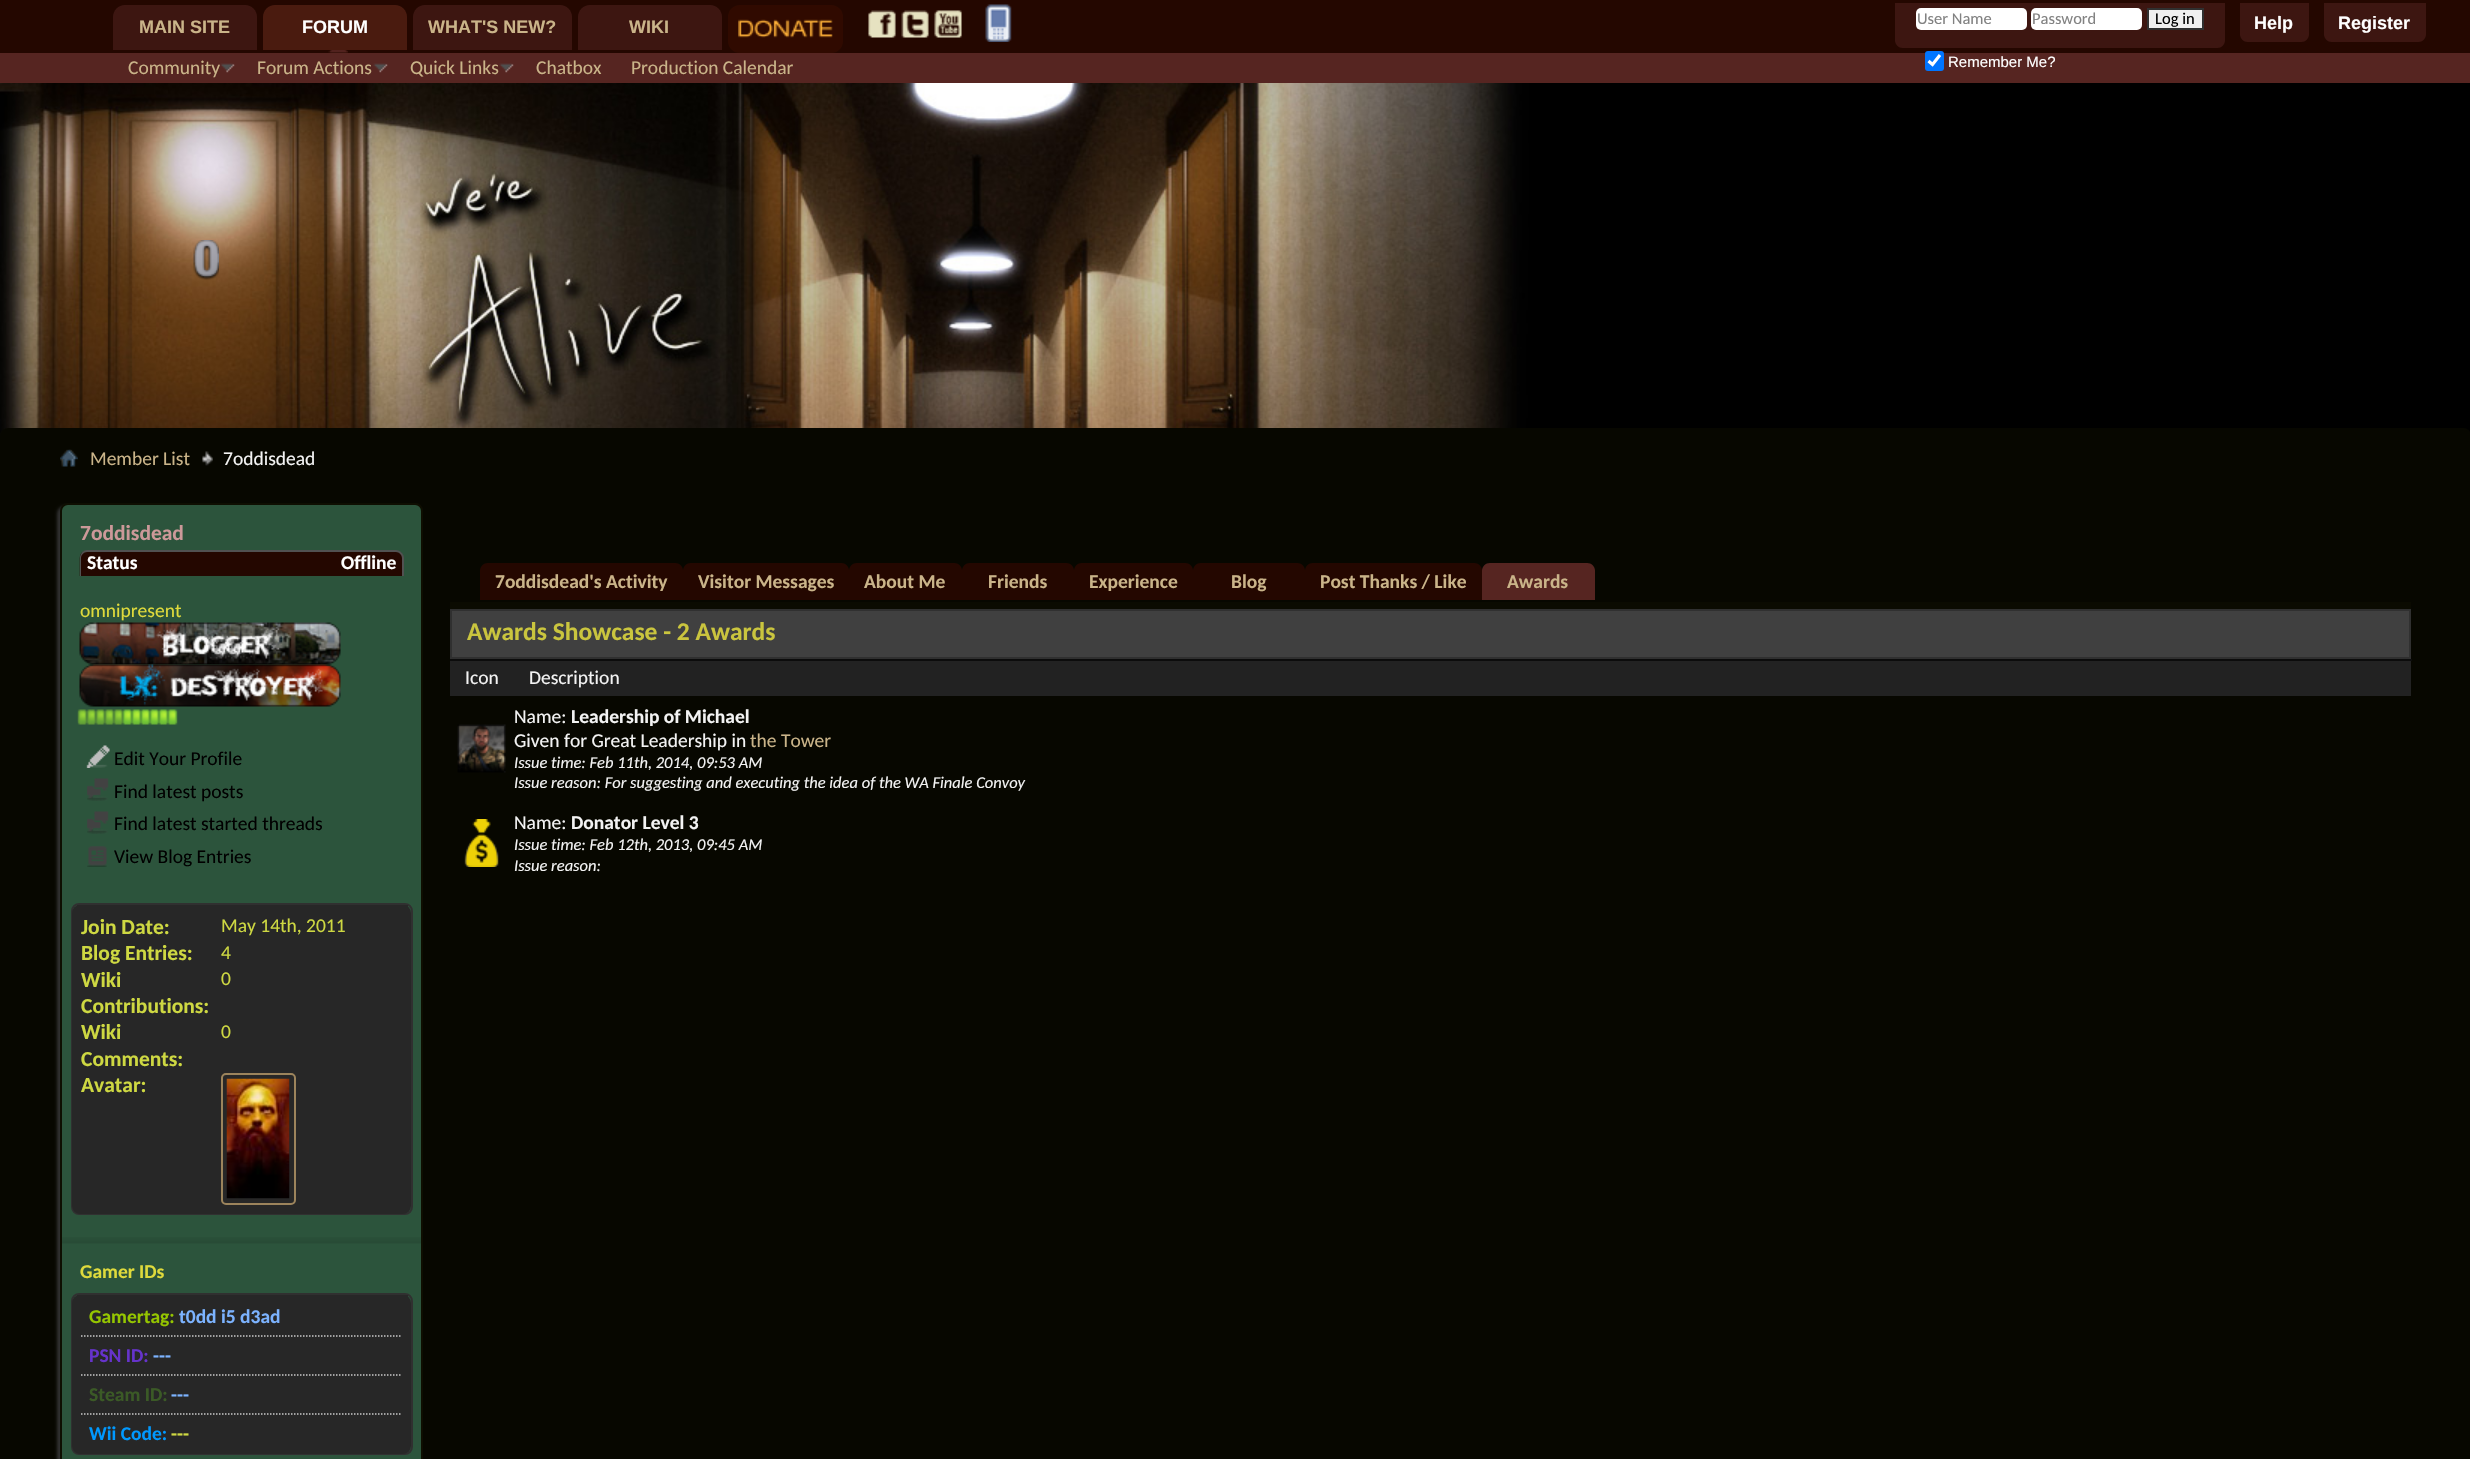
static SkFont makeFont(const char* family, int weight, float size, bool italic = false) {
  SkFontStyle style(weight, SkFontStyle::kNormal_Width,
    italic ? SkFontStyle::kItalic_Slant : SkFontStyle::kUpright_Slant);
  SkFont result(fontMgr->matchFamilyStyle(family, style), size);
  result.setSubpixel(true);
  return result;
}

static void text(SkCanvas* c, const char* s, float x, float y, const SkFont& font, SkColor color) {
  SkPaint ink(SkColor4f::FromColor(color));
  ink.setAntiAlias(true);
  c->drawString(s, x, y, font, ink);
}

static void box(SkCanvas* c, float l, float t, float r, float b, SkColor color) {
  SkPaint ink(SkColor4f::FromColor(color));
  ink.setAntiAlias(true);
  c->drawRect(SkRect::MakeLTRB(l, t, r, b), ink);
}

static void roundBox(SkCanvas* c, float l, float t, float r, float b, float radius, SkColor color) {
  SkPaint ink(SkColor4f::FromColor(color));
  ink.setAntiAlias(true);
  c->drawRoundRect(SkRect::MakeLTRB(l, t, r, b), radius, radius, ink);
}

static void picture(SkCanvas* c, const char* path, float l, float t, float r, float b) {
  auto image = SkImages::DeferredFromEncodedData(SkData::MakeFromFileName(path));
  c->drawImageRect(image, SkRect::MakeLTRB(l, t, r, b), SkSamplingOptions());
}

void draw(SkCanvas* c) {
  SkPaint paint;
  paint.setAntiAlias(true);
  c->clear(0xff000000);
  box(c, 0, 0, 2470, 53, 0xff240700);
  paint.setColor(0xff3d1611);
  c->drawPath(SkPathBuilder().moveTo(125, 5).lineTo(245, 5).cubicTo(251.5f, 5, 257, 10.5f, 257, 17).lineTo(257, 50).lineTo(113, 50).lineTo(113, 17).cubicTo(113, 10.5f, 118.5f, 5, 125, 5).close().detach(), paint);
  SkFont face1 = makeFont("Liberation Sans", 700, 18);
  text(c, "MAIN SITE", 139, 33, face1, 0xffcab489);
  picture(c, "img_01.png", 328, 50, 348, 53);
  paint.setColor(0xff4a1b0f);
  c->drawPath(SkPathBuilder().moveTo(275, 5).lineTo(395, 5).cubicTo(401.5f, 5, 407, 10.5f, 407, 17).lineTo(407, 50).lineTo(263, 50).lineTo(263, 17).cubicTo(263, 10.5f, 268.5f, 5, 275, 5).close().detach(), paint);
  text(c, "FORUM", 302, 33, face1, 0xffffffff);
  paint.setColor(0xff3d1611);
  c->drawPath(SkPathBuilder().moveTo(425, 5).lineTo(560, 5).cubicTo(566.5f, 5, 572, 10.5f, 572, 17).lineTo(572, 50).lineTo(413, 50).lineTo(413, 17).cubicTo(413, 10.5f, 418.5f, 5, 425, 5).close().detach(), paint);
  text(c, "WHAT'S NEW?", 428, 33, face1, 0xffcab489);
  c->drawPath(SkPathBuilder().moveTo(590, 5).lineTo(710, 5).cubicTo(716.5f, 5, 722, 10.5f, 722, 17).lineTo(722, 50).lineTo(578, 50).lineTo(578, 17).cubicTo(578, 10.5f, 583.5f, 5, 590, 5).close().detach(), paint);
  text(c, "WIKI", 629, 33, face1, 0xffcab489);
  roundBox(c, 728, 5, 843, 53, 12, 0xff300a00);
  picture(c, "img_02.png", 738, 19, 833, 38);
  picture(c, "img_03.png", 868, 10, 896, 38);
  picture(c, "img_04.png", 901, 10, 929, 38);
  picture(c, "img_05.png", 934, 10, 962, 38);
  picture(c, "img_06.png", 985, 4, 1012, 42);
  box(c, 0, 53, 2470, 83, 0xff562521);
  SkFont face2 = makeFont("Carlito", 400, 19.5f);
  text(c, "Community", 128, 74, face2, 0xffcab489);
  picture(c, "img_07.png", 220, 63, 235, 73);
  text(c, "Forum Actions", 257, 74, face2, 0xffcab489);
  picture(c, "img_08.png", 373, 63, 388, 73);
  text(c, "Quick Links", 410, 74, face2, 0xffcab489);
  picture(c, "img_07.png", 499, 63, 514, 73);
  text(c, "Chatbox", 536, 74, face2, 0xffcab489);
  text(c, "Production Calendar", 631, 74, face2, 0xffcab489);
  c->drawPath(SkPathBuilder().moveTo(1895, 3).lineTo(2225, 3).lineTo(2225, 40).cubicTo(2225, 44.5f, 2221.5f, 48, 2217, 48).lineTo(1903, 48).cubicTo(1898.5f, 48, 1895, 44.5f, 1895, 40).close().detach(), paint);
  roundBox(c, 1916, 8, 2027, 30, 5, 0xffffffff);
  SkFont face3 = makeFont("Carlito", 400, 16.5f);
  text(c, "User Name", 1917, 24, face3, 0xff828282);
  roundBox(c, 2031, 8, 2142, 30, 5, 0xffffffff);
  text(c, "Password", 2032, 24, face3, 0xff828282);
  paint.setColor(0xffefefef);
  c->drawRect(SkRect::MakeLTRB(2148, 9, 2203, 29), paint);
  paint.setStyle(SkPaint::kStroke_Style);
  paint.setStrokeWidth(2);
  paint.setColor(0xff303030);
  c->drawRect(SkRect::MakeLTRB(2148, 9, 2203, 29), paint);
  text(c, "Log in", 2155, 24, face3, 0xff000000);
  roundBox(c, 1925, 51, 1944, 71, 3, 0xff0075ff);
  paint.setStrokeWidth(3.1f);
  paint.setColor(0xffffffff);
  c->drawPath(SkPathBuilder().moveTo(1928.5f, 61).lineTo(1932.5f, 64.5f).lineTo(1940, 55).detach(), paint);
  SkFont face4 = makeFont("Liberation Sans", 400, 15);
  text(c, "Remember Me?", 1948, 67, face4, 0xffffffff);
  paint.setStyle(SkPaint::kFill_Style);
  paint.setColor(0xff3d1611);
  c->drawPath(SkPathBuilder().moveTo(2240, 3).lineTo(2309, 3).lineTo(2309, 34).cubicTo(2309, 38.5f, 2305.5f, 42, 2301, 42).lineTo(2248, 42).cubicTo(2243.5f, 42, 2240, 38.5f, 2240, 34).close().detach(), paint);
  text(c, "Help", 2254, 29, face1, 0xffffffff);
  c->drawPath(SkPathBuilder().moveTo(2324, 3).lineTo(2426, 3).lineTo(2426, 34).cubicTo(2426, 38.5f, 2422.5f, 42, 2418, 42).lineTo(2332, 42).cubicTo(2327.5f, 42, 2324, 38.5f, 2324, 34).close().detach(), paint);
  text(c, "Register", 2338, 29, face1, 0xffffffff);
  picture(c, "img_26.png", 0, 83, 2086, 436);
  picture(c, "img_09.png", 193, 240, 219, 280);
  roundBox(c, 0, 428, 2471, 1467, 8, 0xff070700);
  picture(c, "img_10.png", 60, 449, 78, 467);
  picture(c, "img_11.png", 202, 451, 213, 466);
  text(c, "Member List", 90, 465, face2, 0xffcab489);
  text(c, "7oddisdead", 223, 465, face2, 0xfff3f3f3);
  paint.setColor(0xff303030);
  paint.setMaskFilter(SkMaskFilter::MakeBlur(kNormal_SkBlurStyle, 1.5f));
  c->drawRoundRect(SkRect::MakeLTRB(57, 506, 420, 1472), 8, 8, paint);
  paint.setMaskFilter(nullptr);
  paint.setColor(0xff2c543c);
  c->drawRoundRect(SkRect::MakeLTRB(61, 504, 422, 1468), 7, 7, paint);
  paint.setStyle(SkPaint::kStroke_Style);
  paint.setStrokeWidth(2);
  paint.setColor(0xff0e0e01);
  c->drawRoundRect(SkRect::MakeLTRB(61, 504, 422, 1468), 7, 7, paint);
  SkFont face5 = makeFont("Carlito", 700, 21.5f);
  text(c, "7oddisdead", 80, 540, face5, 0xffcc9999);
  picture(c, "img_12.png", 79, 550, 404, 576);
  paint.setStyle(SkPaint::kFill_Style);
  paint.setColor(0xff515151);
  c->drawPath(SkPathBuilder(SkPathFillType::kEvenOdd).moveTo(87, 550).lineTo(396, 550).cubicTo(400, 550, 404, 554, 404, 558).lineTo(404, 576).lineTo(80, 576).lineTo(80, 558).cubicTo(80, 554, 83, 550, 87, 550).close().moveTo(87, 552).lineTo(396, 552).cubicTo(399, 552, 402, 555, 402, 558).lineTo(402, 576).lineTo(81, 576).lineTo(81, 558).cubicTo(81, 555, 84, 552, 87, 552).close().detach(), paint);
  SkFont face6 = makeFont("Carlito", 700, 19.5f);
  text(c, "Status", 87, 569, face6, 0xffffffff);
  text(c, "Offline", 341, 569, face6, 0xffffffff);
  text(c, "omnipresent", 80, 617, face2, 0xffdfda3c);
  picture(c, "img_13.png", 79, 622, 341, 665);
  picture(c, "img_14.png", 79, 664, 341, 707);
  picture(c, "img_15.png", 77, 709, 88, 725);
  picture(c, "img_16.png", 87, 709, 97, 725);
  picture(c, "img_16.png", 96, 709, 106, 725);
  picture(c, "img_16.png", 105, 709, 115, 725);
  picture(c, "img_16.png", 114, 709, 124, 725);
  picture(c, "img_17.png", 122, 709, 133, 725);
  picture(c, "img_18.png", 131, 709, 142, 725);
  picture(c, "img_18.png", 140, 709, 151, 725);
  picture(c, "img_18.png", 149, 709, 160, 725);
  picture(c, "img_18.png", 158, 709, 169, 725);
  picture(c, "img_18.png", 167, 709, 178, 725);
  picture(c, "img_19.png", 86, 745, 110, 768);
  text(c, "Edit Your Profile", 114, 765, face2, 0xff000000);
  picture(c, "img_20.png", 87, 778, 109, 801);
  text(c, "Find latest posts", 114, 798, face2, 0xff000000);
  picture(c, "img_20.png", 87, 811, 109, 834);
  text(c, "Find latest started threads", 114, 830, face2, 0xff000000);
  picture(c, "img_21.png", 87, 846, 107, 867);
  text(c, "View Blog Entries", 114, 863, face2, 0xff000000);
  paint.setStyle(SkPaint::kStroke_Style);
  paint.setColor(0xff303030);
  c->drawRoundRect(SkRect::MakeLTRB(72, 904, 412, 1214), 7, 7, paint);
  roundBox(c, 72, 905, 411, 1214, 8, 0xff272727);
  box(c, 77, 905, 408, 907, 0xff272727);
  text(c, "Join Date:", 81, 934, face5, 0xffced842);
  text(c, "May 14th, 2011", 221, 932, face2, 0xffced842);
  text(c, "Blog Entries:", 81, 960, face5, 0xffced842);
  text(c, "4", 221, 959, face2, 0xffced842);
  text(c, "Wiki", 81, 987, face5, 0xffced842);
  text(c, "Contributions:", 81, 1013, face5, 0xffced842);
  text(c, "0", 221, 985, face2, 0xffced842);
  text(c, "Wiki", 81, 1039, face5, 0xffced842);
  text(c, "Comments:", 81, 1066, face5, 0xffced842);
  text(c, "0", 221, 1038, face2, 0xffced842);
  text(c, "Avatar:", 81, 1092, face5, 0xffced842);
  paint.setColor(0xff9c845c);
  c->drawRoundRect(SkRect::MakeLTRB(222, 1074, 295, 1204), 4, 4, paint);
  picture(c, "img_22.png", 226, 1078, 290, 1199);
  picture(c, "img_23.png", 62, 1237, 421, 1244);
  text(c, "Gamer IDs", 80, 1278, face6, 0xffdfda3c);
  paint.setColor(0xff303030);
  c->drawRoundRect(SkRect::MakeLTRB(72, 1294, 412, 1454), 7, 7, paint);
  roundBox(c, 72, 1295, 411, 1454, 8, 0xff272727);
  box(c, 77, 1295, 408, 1297, 0xff272727);
  text(c, "Gamertag:", 89, 1323, face6, 0xff95c600);
  text(c, "t0dd i5 d3ad", 179, 1323, face6, 0xff7cb3ff);
  paint.setStrokeWidth(1.5f);
  paint.setColor(0xffc9c9c9);
  paint.setPathEffect(SkDashPathEffect::Make({{1.5f, 1.5f}}, 0));
  c->drawPath(SkPathBuilder().moveTo(81, 1336).lineTo(402, 1336).detach(), paint);
  paint.setPathEffect(nullptr);
  text(c, "PSN ID:", 89, 1362, face6, 0xff6633cc);
  text(c, "---", 153, 1362, face6, 0xff7cb3ff);
  paint.setPathEffect(SkDashPathEffect::Make({{1.5f, 1.5f}}, 0));
  c->drawPath(SkPathBuilder().moveTo(81, 1375).lineTo(402, 1375).detach(), paint);
  paint.setPathEffect(nullptr);
  text(c, "Steam ID:", 89, 1401, face6, 0xff3b5a26);
  text(c, "---", 171, 1401, face6, 0xff7cb3ff);
  paint.setPathEffect(SkDashPathEffect::Make({{1.5f, 1.5f}}, 0));
  c->drawPath(SkPathBuilder().moveTo(81, 1414).lineTo(402, 1414).detach(), paint);
  paint.setPathEffect(nullptr);
  text(c, "Wii Code:", 89, 1440, face6, 0xff0099ff);
  text(c, "---", 171, 1440, face6, 0xffced842);
  paint.setStyle(SkPaint::kFill_Style);
  paint.setColor(0xff240700);
  c->drawPath(SkPathBuilder().moveTo(488, 563).lineTo(675, 563).cubicTo(679.5f, 563, 683, 566.5f, 683, 571).lineTo(683, 600).lineTo(480, 600).lineTo(480, 571).cubicTo(480, 566.5f, 483.5f, 563, 488, 563).close().detach(), paint);
  text(c, "7oddisdead's Activity", 495, 588, face6, 0xffcab489);
  c->drawPath(SkPathBuilder().moveTo(691, 563).lineTo(841, 563).cubicTo(845.5f, 563, 849, 566.5f, 849, 571).lineTo(849, 600).lineTo(683, 600).lineTo(683, 571).cubicTo(683, 566.5f, 686.5f, 563, 691, 563).close().detach(), paint);
  text(c, "Visitor Messages", 698, 588, face6, 0xffcab489);
  c->drawPath(SkPathBuilder().moveTo(857, 563).lineTo(954, 563).cubicTo(958.5f, 563, 962, 566.5f, 962, 571).lineTo(962, 600).lineTo(849, 600).lineTo(849, 571).cubicTo(849, 566.5f, 852.5f, 563, 857, 563).close().detach(), paint);
  text(c, "About Me", 864, 588, face6, 0xffcab489);
  c->drawPath(SkPathBuilder().moveTo(970, 563).lineTo(1066, 563).cubicTo(1070.5f, 563, 1074, 566.5f, 1074, 571).lineTo(1074, 600).lineTo(962, 600).lineTo(962, 571).cubicTo(962, 566.5f, 965.5f, 563, 970, 563).close().detach(), paint);
  text(c, "Friends", 988, 588, face6, 0xffcab489);
  c->drawPath(SkPathBuilder().moveTo(1082, 563).lineTo(1185, 563).cubicTo(1189.5f, 563, 1193, 566.5f, 1193, 571).lineTo(1193, 600).lineTo(1074, 600).lineTo(1074, 571).cubicTo(1074, 566.5f, 1077.5f, 563, 1082, 563).close().detach(), paint);
  text(c, "Experience", 1089, 588, face6, 0xffcab489);
  c->drawPath(SkPathBuilder().moveTo(1201, 563).lineTo(1297, 563).cubicTo(1301.5f, 563, 1305, 566.5f, 1305, 571).lineTo(1305, 600).lineTo(1193, 600).lineTo(1193, 571).cubicTo(1193, 566.5f, 1196.5f, 563, 1201, 563).close().detach(), paint);
  text(c, "Blog", 1231, 588, face6, 0xffcab489);
  c->drawPath(SkPathBuilder().moveTo(1313, 563).lineTo(1474, 563).cubicTo(1478.5f, 563, 1482, 566.5f, 1482, 571).lineTo(1482, 600).lineTo(1305, 600).lineTo(1305, 571).cubicTo(1305, 566.5f, 1308.5f, 563, 1313, 563).close().detach(), paint);
  text(c, "Post Thanks / Like", 1320, 588, face6, 0xffcab489);
  paint.setColor(0xff562521);
  c->drawPath(SkPathBuilder().moveTo(1490, 563).lineTo(1587, 563).cubicTo(1591.5f, 563, 1595, 566.5f, 1595, 571).lineTo(1595, 600).lineTo(1482, 600).lineTo(1482, 571).cubicTo(1482, 566.5f, 1485.5f, 563, 1490, 563).close().detach(), paint);
  text(c, "Awards", 1507, 588, face6, 0xffcab489);
  box(c, 450, 602, 2411, 609, 0xff0b0b01);
  paint.setColor(0xff404040);
  c->drawRect(SkRect::MakeLTRB(451, 610, 2410, 658), paint);
  paint.setStyle(SkPaint::kStroke_Style);
  paint.setStrokeWidth(2);
  paint.setColor(0xff303030);
  c->drawRect(SkRect::MakeLTRB(451, 610, 2410, 658), paint);
  SkFont face7 = makeFont("Carlito", 700, 25.5f);
  text(c, "Awards Showcase - 2 Awards", 467, 640, face7, 0xffcac53e);
  box(c, 450, 661, 2411, 696, 0xff222222);
  text(c, "Icon", 465, 684, face2, 0xfff3f3f3);
  box(c, 450, 659, 2412, 661, 0xff0c0c0c);
  text(c, "Description", 529, 684, face2, 0xfff3f3f3);
  picture(c, "img_24.png", 457, 724, 506, 773);
  text(c, "Name:", 514, 723, face2, 0xfff3f3f3);
  text(c, "Leadership of Michael", 571, 723, face6, 0xfff3f3f3);
  text(c, "Given for Great Leadership in", 514, 747, face2, 0xfff3f3f3);
  text(c, "the Tower", 750, 747, face2, 0xffcab489);
  SkFont face8 = makeFont("Carlito", 400, 16.5f, true);
  text(c, "Issue time: Feb 11th, 2014, 09:53 AM", 514, 768, face8, 0xfff3f3f3);
  text(c, "Issue reason: For suggesting and executing the idea of the WA Finale Convoy", 514, 788, face8, 0xfff3f3f3);
  picture(c, "img_25.png", 464, 819, 499, 867);
  text(c, "Name:", 514, 829, face2, 0xfff3f3f3);
  text(c, "Donator Level 3", 571, 829, face6, 0xfff3f3f3);
  text(c, "Issue time: Feb 12th, 2013, 09:45 AM", 514, 850, face8, 0xfff3f3f3);
  text(c, "Issue reason:", 514, 871, face8, 0xfff3f3f3);
}
